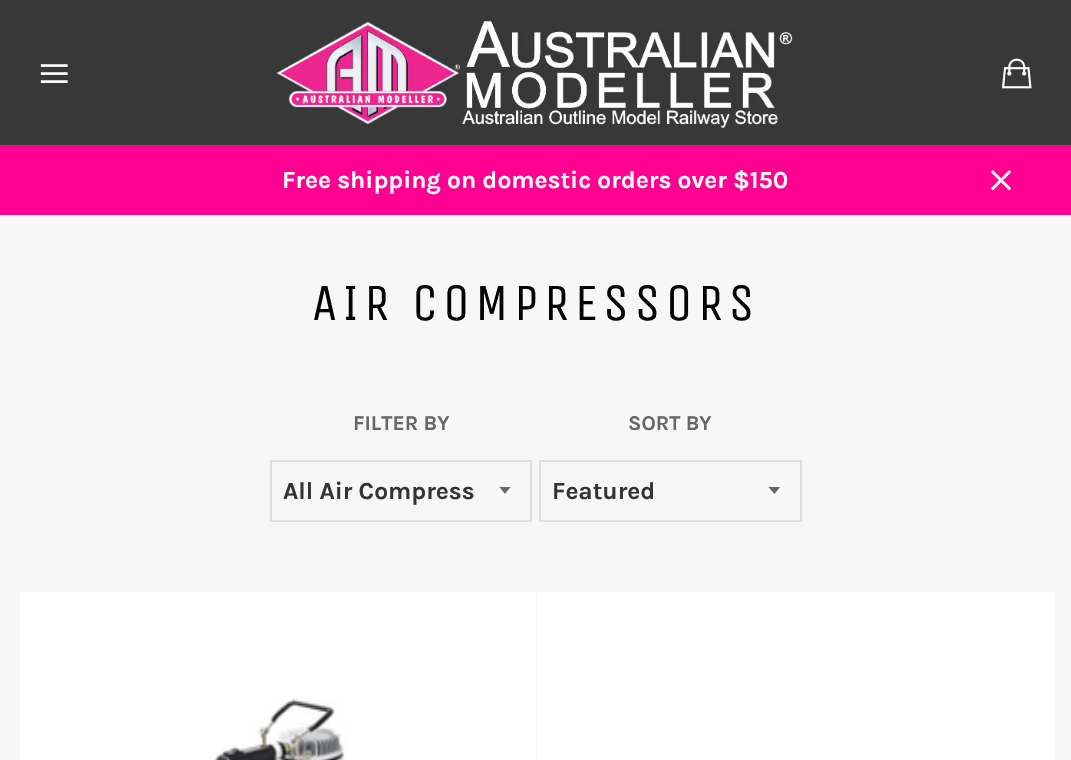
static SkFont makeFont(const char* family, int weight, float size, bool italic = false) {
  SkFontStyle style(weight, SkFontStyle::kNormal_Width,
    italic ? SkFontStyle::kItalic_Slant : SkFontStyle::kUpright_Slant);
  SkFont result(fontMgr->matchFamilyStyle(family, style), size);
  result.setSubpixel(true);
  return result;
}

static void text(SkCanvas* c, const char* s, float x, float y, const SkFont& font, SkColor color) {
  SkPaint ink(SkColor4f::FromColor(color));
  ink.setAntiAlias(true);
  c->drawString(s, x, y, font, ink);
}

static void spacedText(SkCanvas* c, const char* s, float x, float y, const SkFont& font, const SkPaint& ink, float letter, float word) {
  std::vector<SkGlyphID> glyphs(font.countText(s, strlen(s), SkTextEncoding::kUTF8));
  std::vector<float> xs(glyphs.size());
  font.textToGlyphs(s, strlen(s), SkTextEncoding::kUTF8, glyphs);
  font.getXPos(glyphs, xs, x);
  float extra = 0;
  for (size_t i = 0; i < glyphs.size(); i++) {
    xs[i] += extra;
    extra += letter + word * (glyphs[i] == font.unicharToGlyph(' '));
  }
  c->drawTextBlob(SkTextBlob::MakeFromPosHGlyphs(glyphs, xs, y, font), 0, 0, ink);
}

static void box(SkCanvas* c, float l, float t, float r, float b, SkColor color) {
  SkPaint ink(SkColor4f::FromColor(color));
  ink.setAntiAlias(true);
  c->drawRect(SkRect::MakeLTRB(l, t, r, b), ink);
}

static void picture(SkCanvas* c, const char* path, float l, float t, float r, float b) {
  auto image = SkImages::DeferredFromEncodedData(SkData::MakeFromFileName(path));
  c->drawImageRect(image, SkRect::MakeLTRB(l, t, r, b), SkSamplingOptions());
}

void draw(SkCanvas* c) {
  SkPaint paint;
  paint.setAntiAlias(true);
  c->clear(0xfff7f7f7);
  box(c, 0, 0, 1071, 145, 0xff383838);
  picture(c, "img_01.png", 40, 64, 68, 83);
  picture(c, "img_02.png", 276, 21, 793, 128);
  picture(c, "img_03.png", 1002, 58, 1032, 89);
  box(c, 0, 145, 1071, 215, 0xffff0090);
  SkFont face1 = makeFont("Karla", 700, 24.5f);
  text(c, "Free shipping on domestic orders over $150", 282, 188, face1, 0xffffffff);
  picture(c, "img_04.png", 990, 170, 1012, 191);
  SkFont face2 = makeFont("Unica One", 400, 52.5f);
  paint.setColor(0xff030303);
  spacedText(c, "AIR COMPRESSORS", 312, 320, face2, paint, 5.25f, 0);
  SkFont face3 = makeFont("Karla", 700, 21);
  text(c, "FILTER BY", 353, 430, face3, 0xff666666);
  c->save();
  c->clipRect(SkRect::MakeLTRB(499, 487, 513, 495));
  paint.setColor(0xff666666);
  c->drawPath(SkPathBuilder().moveTo(499, 486.5f).lineTo(505, 494).lineTo(511, 486.5f).close().detach(), paint);
  c->restore();
  paint.setStyle(SkPaint::kStroke_Style);
  paint.setStrokeWidth(2);
  paint.setColor(0xffdedede);
  c->drawRect(SkRect::MakeLTRB(271, 461, 531, 521), paint);
  text(c, "All Air Compress", 283, 499, face1, 0xff333333);
  text(c, "SORT BY", 628, 430, face3, 0xff666666);
  c->save();
  c->clipRect(SkRect::MakeLTRB(768, 487, 782, 495));
  paint.setStyle(SkPaint::kFill_Style);
  paint.setColor(0xff666666);
  c->drawPath(SkPathBuilder().moveTo(768, 486.5f).lineTo(774.5f, 494).lineTo(780.5f, 486.5f).close().detach(), paint);
  c->restore();
  paint.setStyle(SkPaint::kStroke_Style);
  paint.setColor(0xffdedede);
  c->drawRect(SkRect::MakeLTRB(540, 461, 801, 521), paint);
  text(c, "Featured", 552, 499, face1, 0xff333333);
  box(c, 20, 592, 536, 760, 0xffffffff);
  picture(c, "img_05.png", 214, 699, 347, 760);
  box(c, 538, 592, 1054, 760, 0xffffffff);
}
